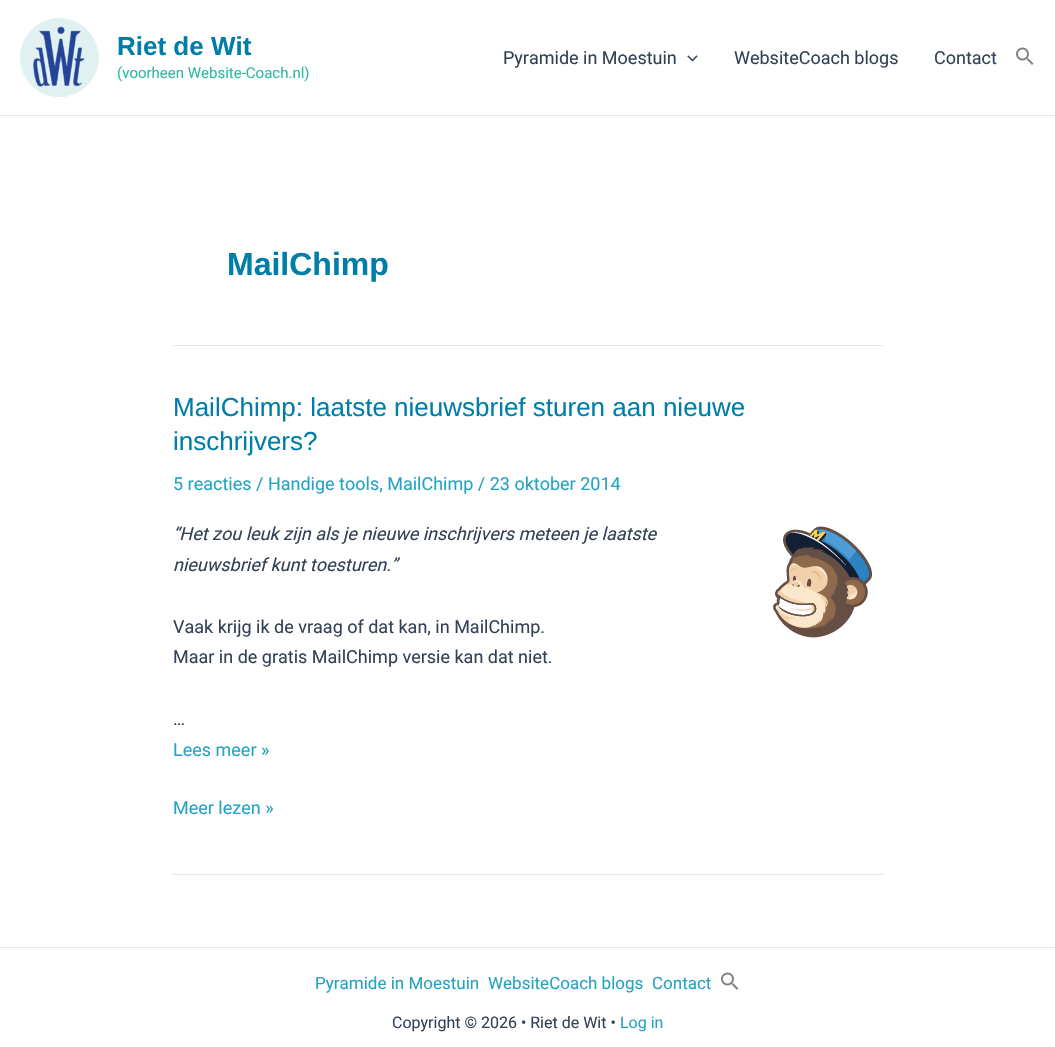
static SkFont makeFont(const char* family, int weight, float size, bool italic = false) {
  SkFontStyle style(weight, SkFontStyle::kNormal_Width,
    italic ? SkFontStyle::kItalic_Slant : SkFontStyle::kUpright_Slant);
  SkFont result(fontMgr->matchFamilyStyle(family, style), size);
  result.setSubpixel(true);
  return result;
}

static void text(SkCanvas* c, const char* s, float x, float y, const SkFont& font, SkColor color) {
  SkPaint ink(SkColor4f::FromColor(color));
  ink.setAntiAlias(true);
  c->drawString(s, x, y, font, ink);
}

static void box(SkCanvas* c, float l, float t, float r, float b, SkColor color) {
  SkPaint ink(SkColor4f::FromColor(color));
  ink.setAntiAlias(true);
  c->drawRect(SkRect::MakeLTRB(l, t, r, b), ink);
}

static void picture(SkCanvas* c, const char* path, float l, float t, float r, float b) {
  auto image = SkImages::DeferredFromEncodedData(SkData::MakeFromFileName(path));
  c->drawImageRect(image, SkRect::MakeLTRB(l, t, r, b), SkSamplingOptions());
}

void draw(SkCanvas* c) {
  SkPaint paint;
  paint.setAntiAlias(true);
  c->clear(0xffffffff);
  box(c, 0, 115, 1055, 116, 0xffe2e8f0);
  picture(c, "img_01.png", 20, 18, 99, 97);
  SkFont face1 = makeFont("Liberation Sans", 700, 26);
  text(c, "Riet de Wit", 117, 55, face1, 0xff007ea7);
  SkFont face2 = makeFont("Roboto", 400, 15);
  text(c, "(voorheen Website-Coach.nl)", 117, 78, face2, 0xff2db9a2);
  SkFont face3 = makeFont("Roboto", 400, 18);
  text(c, "Pyramide in Moestuin", 503, 64, face3, 0xff334155);
  picture(c, "img_02.png", 687, 55, 698, 62);
  text(c, "WebsiteCoach blogs", 734, 64, face3, 0xff334155);
  text(c, "Contact", 934, 64, face3, 0xff334155);
  picture(c, "img_03.png", 1016, 47, 1034, 65);
  box(c, 173, 345, 883, 346, 0xffe2e8f0);
  SkFont face4 = makeFont("Liberation Sans", 700, 32);
  text(c, "MailChimp", 227, 275, face4, 0xff007ea7);
  box(c, 173, 874, 883, 875, 0xffe2e8f0);
  SkFont face5 = makeFont("Liberation Sans", 400, 26);
  text(c, "MailChimp: laatste nieuwsbrief sturen aan nieuwe", 173, 416, face5, 0xff007ea7);
  text(c, "inschrijvers?", 173, 450, face5, 0xff007ea7);
  text(c, "5 reacties / Handige tools, MailChimp / 23 oktober 2014", 173, 490, face3, 0xff25a3c2);
  SkFont face6 = makeFont("Roboto", 400, 18, true);
  text(c, "“Het zou leuk zijn als je nieuwe inschrijvers meteen je laatste", 173, 540, face6, 0xff334155);
  text(c, "nieuwsbrief kunt toesturen.”", 173, 571, face6, 0xff334155);
  picture(c, "img_04.png", 773, 526, 872, 638);
  text(c, "Vaak krijg ik de vraag of dat kan, in MailChimp.", 173, 633, face3, 0xff334155);
  text(c, "Maar in de gratis MailChimp versie kan dat niet.", 173, 663, face3, 0xff334155);
  text(c, "…", 173, 725, face3, 0xff334155);
  text(c, "Lees meer »", 173, 756, face3, 0xff25a3c2);
  text(c, "Meer lezen »", 173, 814, face3, 0xff25a3c2);
  box(c, 0, 947, 1055, 948, 0xffe2e8f0);
  SkFont face7 = makeFont("Roboto", 400, 17);
  text(c, "Pyramide in Moestuin", 315, 989, face7, 0xff25a3c2);
  text(c, "WebsiteCoach blogs", 488, 989, face7, 0xff25a3c2);
  text(c, "Contact", 652, 989, face7, 0xff25a3c2);
  picture(c, "img_03.png", 721, 972, 739, 990);
  SkFont face8 = makeFont("Roboto", 400, 16);
  text(c, "Copyright © 2026 • Riet de Wit •", 392, 1028, face8, 0xff334155);
  text(c, "Log in", 620, 1028, face8, 0xff25a3c2);
}
